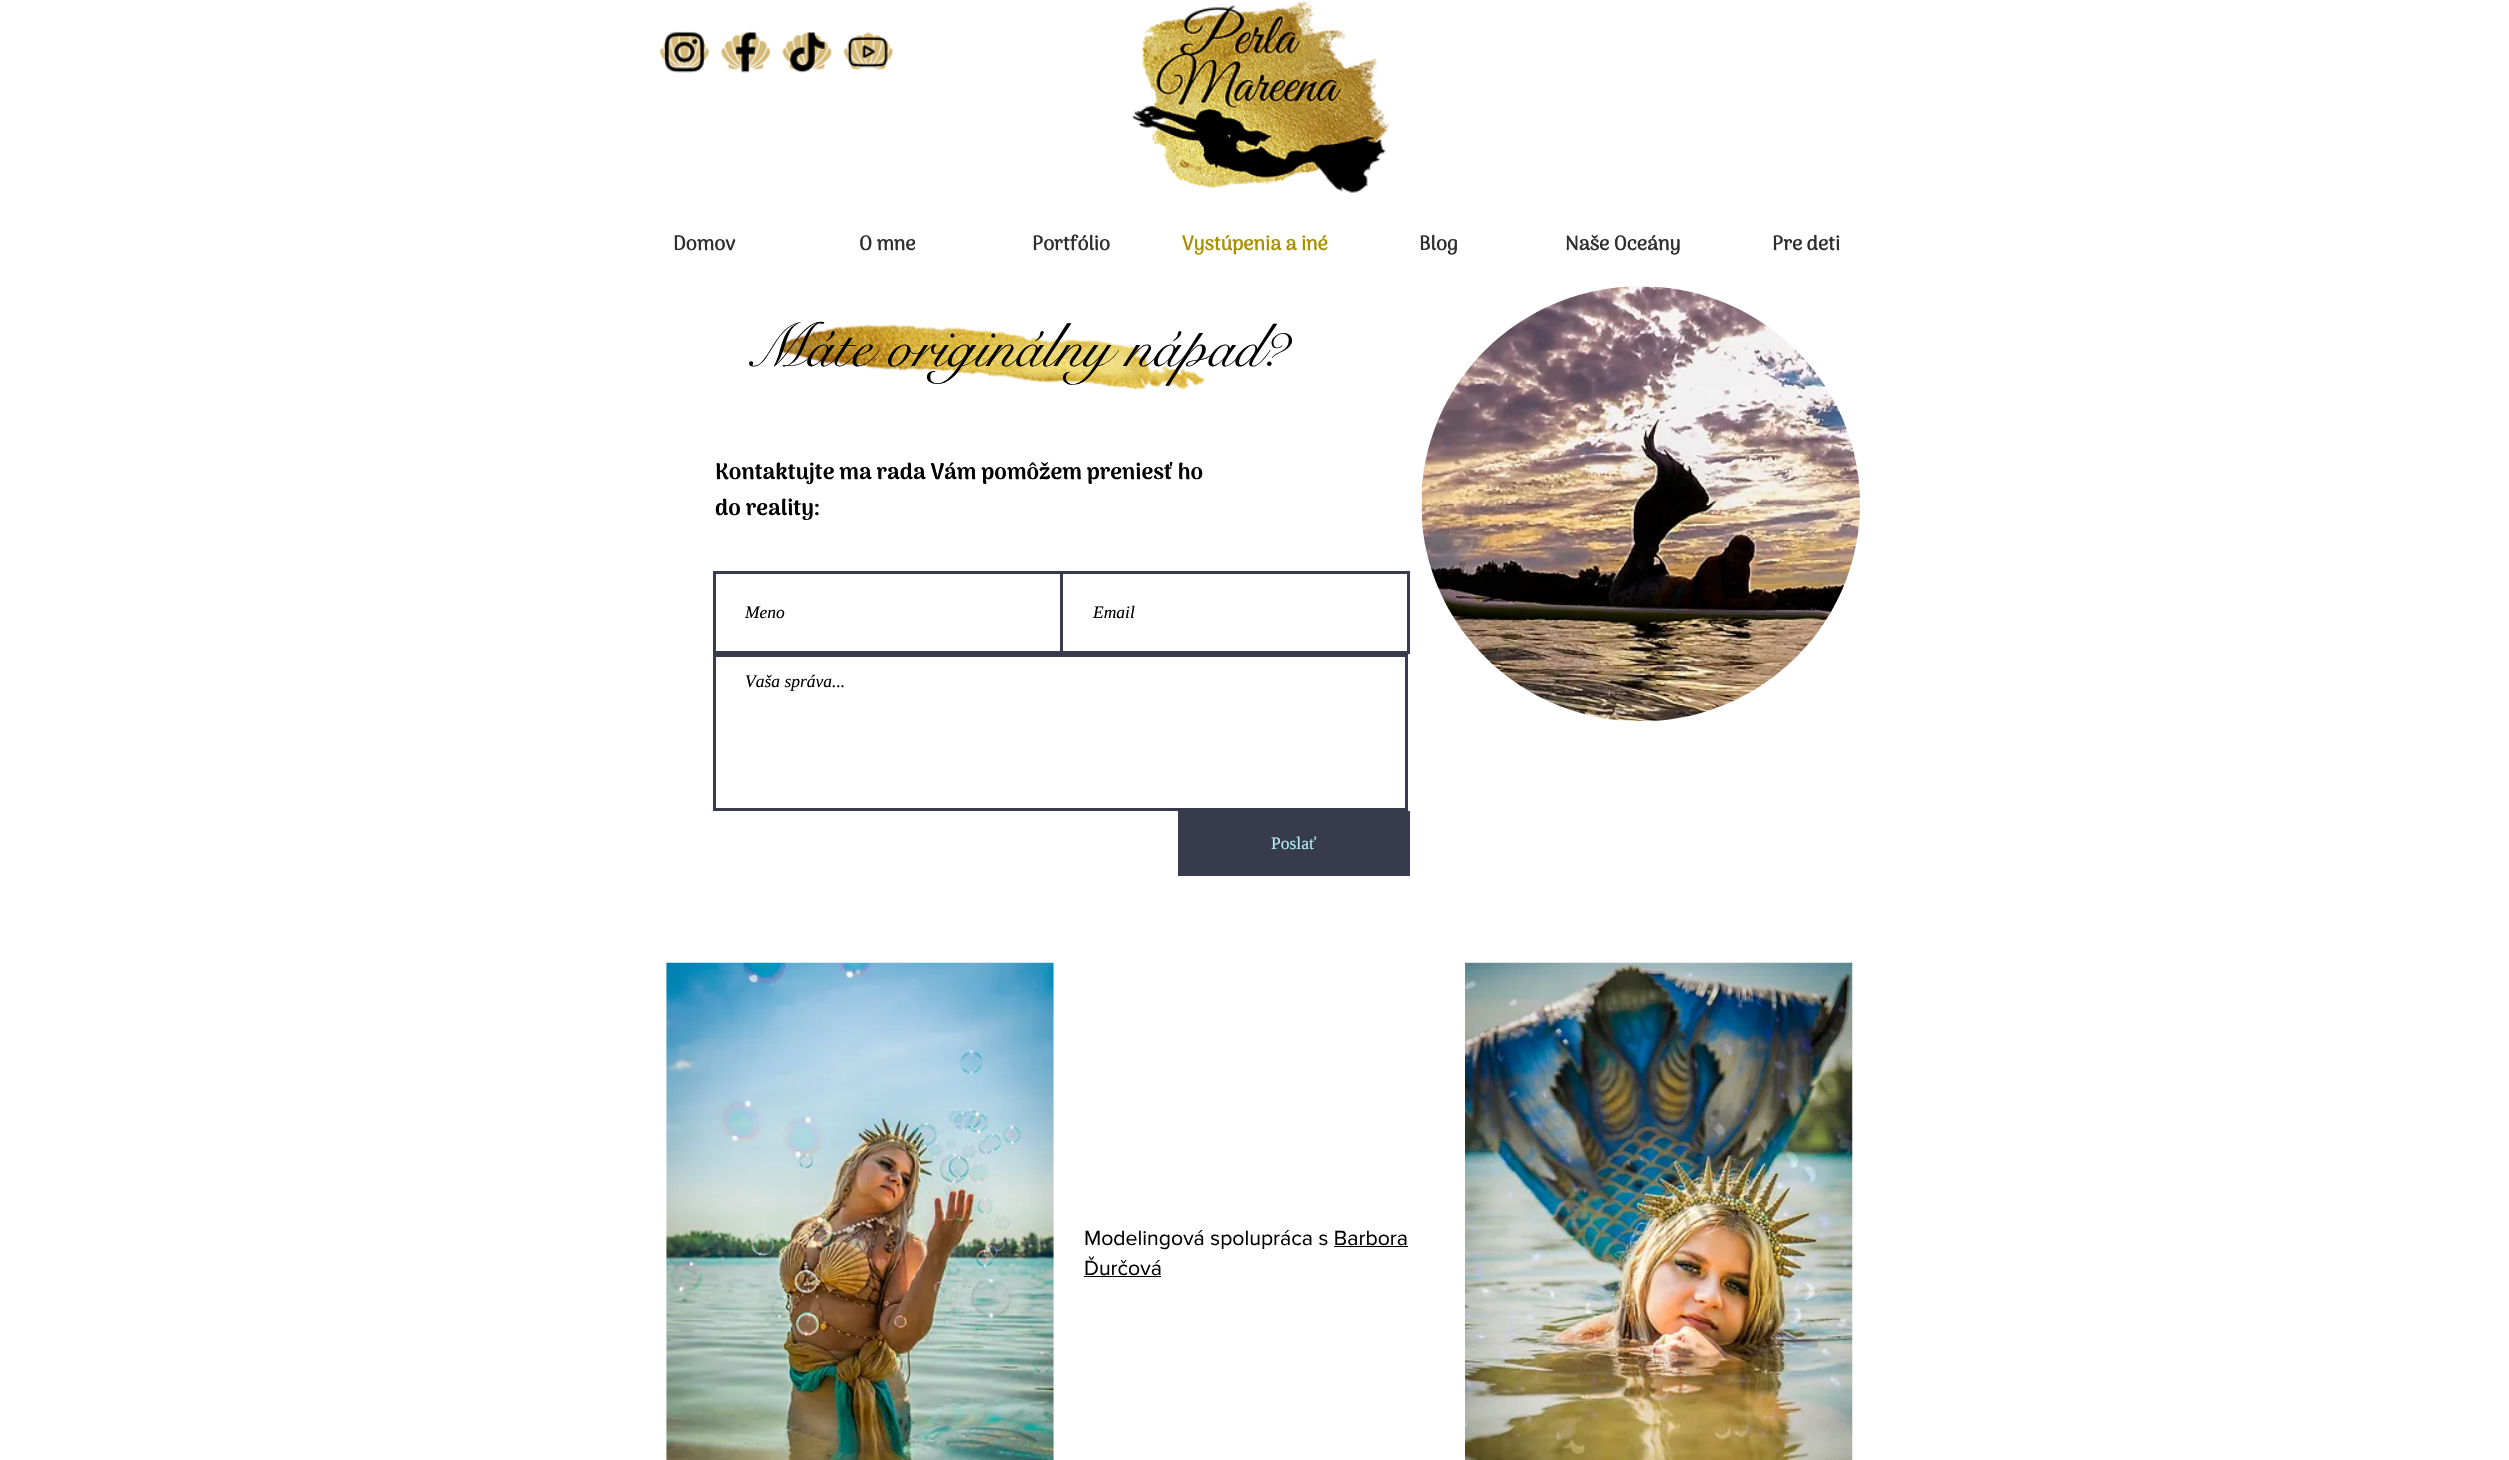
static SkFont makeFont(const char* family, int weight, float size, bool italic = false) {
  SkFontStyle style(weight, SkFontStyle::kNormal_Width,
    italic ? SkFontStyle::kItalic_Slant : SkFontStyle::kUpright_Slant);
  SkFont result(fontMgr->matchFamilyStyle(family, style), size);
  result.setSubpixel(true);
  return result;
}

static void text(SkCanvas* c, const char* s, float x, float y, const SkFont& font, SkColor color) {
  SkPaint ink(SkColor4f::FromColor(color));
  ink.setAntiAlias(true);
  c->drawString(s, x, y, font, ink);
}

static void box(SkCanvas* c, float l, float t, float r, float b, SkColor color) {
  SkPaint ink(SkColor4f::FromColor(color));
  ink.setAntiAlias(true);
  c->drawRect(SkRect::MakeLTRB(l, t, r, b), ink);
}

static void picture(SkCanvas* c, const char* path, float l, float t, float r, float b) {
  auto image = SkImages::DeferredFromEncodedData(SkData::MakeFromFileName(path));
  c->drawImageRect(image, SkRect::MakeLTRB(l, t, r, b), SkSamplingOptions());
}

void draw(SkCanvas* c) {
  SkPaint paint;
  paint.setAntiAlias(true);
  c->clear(0xffffffff);
  picture(c, "img_01.png", 660, 31, 709, 73);
  picture(c, "img_02.png", 721, 31, 770, 73);
  picture(c, "img_03.png", 782, 32, 832, 73);
  picture(c, "img_04.png", 843, 32, 893, 70);
  picture(c, "img_05.png", 1132, 0, 1390, 193);
  SkFont face1 = makeFont("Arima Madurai", 700, 20);
  text(c, "Domov", 673, 250, face1, 0xff2f2e2e);
  text(c, "O mne", 859, 250, face1, 0xff2f2e2e);
  text(c, "Portfólio", 1032, 250, face1, 0xff2f2e2e);
  text(c, "Vystúpenia a iné", 1182, 250, face1, 0xffaa8f00);
  text(c, "Blog", 1419, 250, face1, 0xff2f2e2e);
  text(c, "Naše Oceány", 1565, 250, face1, 0xff2f2e2e);
  text(c, "Pre deti", 1772, 250, face1, 0xff2f2e2e);
  picture(c, "img_07.png", 780, 324, 1205, 391);
  SkFont face2 = makeFont("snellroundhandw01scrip", 400, 61.25f);
  text(c, "Máte originálny nápad?", 746, 366, face2, 0xff000000);
  picture(c, "img_06.png", 1421, 286, 1860, 721);
  SkFont face3 = makeFont("Arima Madurai", 900, 22.5f);
  text(c, "Kontaktujte ma rada Vám pomôžem preniesť ho", 715, 479, face3, 0xff000000);
  text(c, "do reality:", 715, 515, face3, 0xff000000);
  paint.setStyle(SkPaint::kStroke_Style);
  paint.setStrokeWidth(3);
  paint.setColor(0xff373b4d);
  c->drawRect(SkRect::MakeLTRB(714.5f, 572.5f, 1061.5f, 652.5f), paint);
  SkFont face4 = makeFont("Liberation Serif", 400, 17.5f, true);
  text(c, "Meno", 745, 618, face4, 0xff000000);
  c->drawRect(SkRect::MakeLTRB(1061.5f, 572.5f, 1408.5f, 652.5f), paint);
  text(c, "Email", 1093, 618, face4, 0xff000000);
  c->drawRect(SkRect::MakeLTRB(714.5f, 655.5f, 1406.5f, 809.5f), paint);
  text(c, "Vaša správa...", 745, 687, face4, 0xff000000);
  box(c, 1178, 811, 1410, 876, 0xff373b4d);
  SkFont face5 = makeFont("Liberation Serif", 400, 17.5f);
  text(c, "Poslať", 1271, 849, face5, 0xffafeeee);
  picture(c, "img_08.png", 666, 962, 1054, 1460);
  SkFont face6 = makeFont("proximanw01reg", 400, 21.25f);
  text(c, "Modelingová spolupráca s Barbora", 1084, 1245, face6, 0xff000000);
  text(c, "Ďurčová", 1084, 1275, face6, 0xff000000);
  box(c, 1334, 1246, 1408, 1247, 0xff000000);
  box(c, 1084, 1276, 1161, 1277, 0xff000000);
  picture(c, "img_09.png", 1465, 962, 1853, 1460);
}
